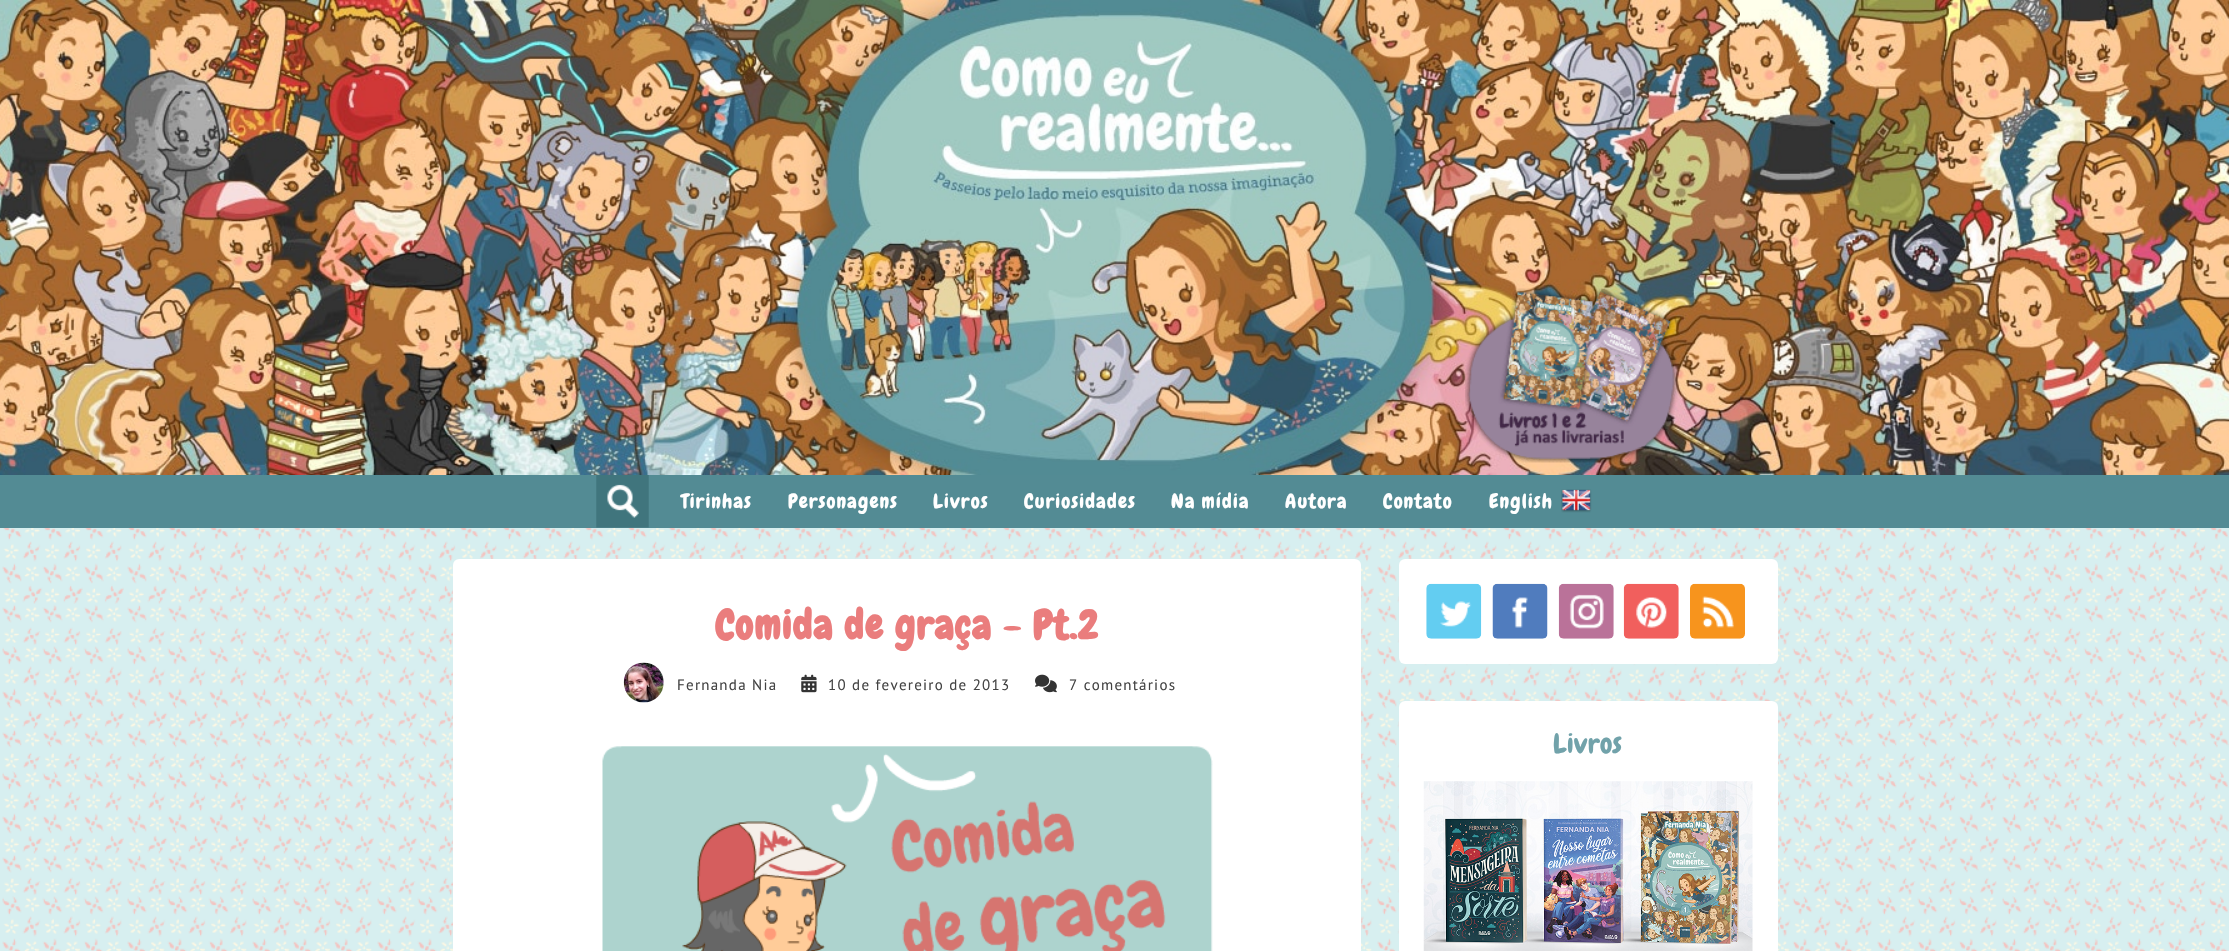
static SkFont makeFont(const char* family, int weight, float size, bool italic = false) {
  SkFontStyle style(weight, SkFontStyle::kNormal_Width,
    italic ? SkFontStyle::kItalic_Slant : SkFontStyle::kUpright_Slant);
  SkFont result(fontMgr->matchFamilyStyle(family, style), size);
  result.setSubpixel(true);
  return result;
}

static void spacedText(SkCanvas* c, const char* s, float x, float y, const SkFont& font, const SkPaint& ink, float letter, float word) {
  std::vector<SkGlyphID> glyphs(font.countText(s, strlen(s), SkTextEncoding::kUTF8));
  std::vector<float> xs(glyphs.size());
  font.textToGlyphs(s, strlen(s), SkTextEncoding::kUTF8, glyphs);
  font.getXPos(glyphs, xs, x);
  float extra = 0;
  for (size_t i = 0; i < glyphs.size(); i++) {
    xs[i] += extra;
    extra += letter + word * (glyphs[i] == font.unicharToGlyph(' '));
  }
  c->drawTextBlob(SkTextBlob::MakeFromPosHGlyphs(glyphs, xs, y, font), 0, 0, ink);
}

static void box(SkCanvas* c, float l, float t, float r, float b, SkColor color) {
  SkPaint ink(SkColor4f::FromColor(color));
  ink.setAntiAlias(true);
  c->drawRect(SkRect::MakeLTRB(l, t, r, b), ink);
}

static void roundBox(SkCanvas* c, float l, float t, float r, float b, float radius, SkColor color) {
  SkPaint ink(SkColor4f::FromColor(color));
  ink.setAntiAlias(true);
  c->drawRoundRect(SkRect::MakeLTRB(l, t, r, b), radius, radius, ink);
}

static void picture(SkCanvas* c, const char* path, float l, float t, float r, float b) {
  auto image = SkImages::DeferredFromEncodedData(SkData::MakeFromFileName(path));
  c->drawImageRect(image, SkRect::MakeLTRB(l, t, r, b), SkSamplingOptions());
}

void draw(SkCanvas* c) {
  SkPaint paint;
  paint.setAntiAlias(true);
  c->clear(0xffffffff);
  picture(c, "img_01.png", 0, 528, 2229, 951);
  picture(c, "img_02.png", 0, 0, 490, 475);
  picture(c, "img_03.png", 1740, 0, 2229, 475);
  picture(c, "img_04.png", 490, 0, 1740, 475);
  picture(c, "img_05.png", 1465, 288, 1678, 463);
  box(c, 0, 475, 2229, 528, 0xff538b94);
  picture(c, "img_06.png", 596, 475, 649, 528);
  SkFont face1 = makeFont("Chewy", 400, 20);
  paint.setColor(0xffffffff);
  spacedText(c, "Tirinhas", 681, 508, face1, paint, 1.25f, 0);
  spacedText(c, "Personagens", 788, 508, face1, paint, 1.25f, 0);
  spacedText(c, "Livros", 933, 508, face1, paint, 1.25f, 0);
  spacedText(c, "Curiosidades", 1024, 508, face1, paint, 1.25f, 0);
  spacedText(c, "Na mídia", 1171, 508, face1, paint, 1.25f, 0);
  spacedText(c, "Autora", 1285, 508, face1, paint, 1.25f, 0);
  spacedText(c, "Contato", 1383, 508, face1, paint, 1.25f, 0);
  spacedText(c, "English", 1489, 508, face1, paint, 1.25f, 0);
  picture(c, "img_07.png", 1561, 489, 1592, 513);
  roundBox(c, 453, 559, 1361, 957, 6, 0xffffffff);
  SkFont face2 = makeFont("Chewy", 700, 40);
  paint.setColor(0xffea7d7d);
  spacedText(c, "Comida de graça - Pt.2", 715, 639, face2, paint, 1.25f, 0);
  picture(c, "img_08.png", 623, 662, 664, 703);
  SkFont face3 = makeFont("PT Sans", 400, 15);
  paint.setColor(0xff434343);
  spacedText(c, "Fernanda Nia", 677, 690, face3, paint, 1.25f, 0);
  picture(c, "img_09.png", 801, 674, 817, 693);
  spacedText(c, "10 de fevereiro de 2013", 828, 690, face3, paint, 1.25f, 0);
  picture(c, "img_10.png", 1035, 674, 1057, 693);
  spacedText(c, "7 comentários", 1069, 690, face3, paint, 1.25f, 0);
  picture(c, "img_11.png", 602, 746, 1213, 951);
  roundBox(c, 1399, 559, 1778, 664, 6, 0xffffffff);
  picture(c, "img_12.png", 1426, 583, 1482, 639);
  picture(c, "img_13.png", 1492, 583, 1548, 639);
  picture(c, "img_14.png", 1558, 583, 1614, 639);
  picture(c, "img_15.png", 1623, 583, 1679, 639);
  picture(c, "img_16.png", 1690, 583, 1745, 639);
  roundBox(c, 1399, 701, 1778, 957, 6, 0xffffffff);
  SkFont face4 = makeFont("Chewy", 400, 27.5f);
  paint.setColor(0xff71a2aa);
  spacedText(c, "Livros", 1553, 753, face4, paint, 0.5f, 0);
  picture(c, "img_17.png", 1423, 781, 1753, 951);
}
